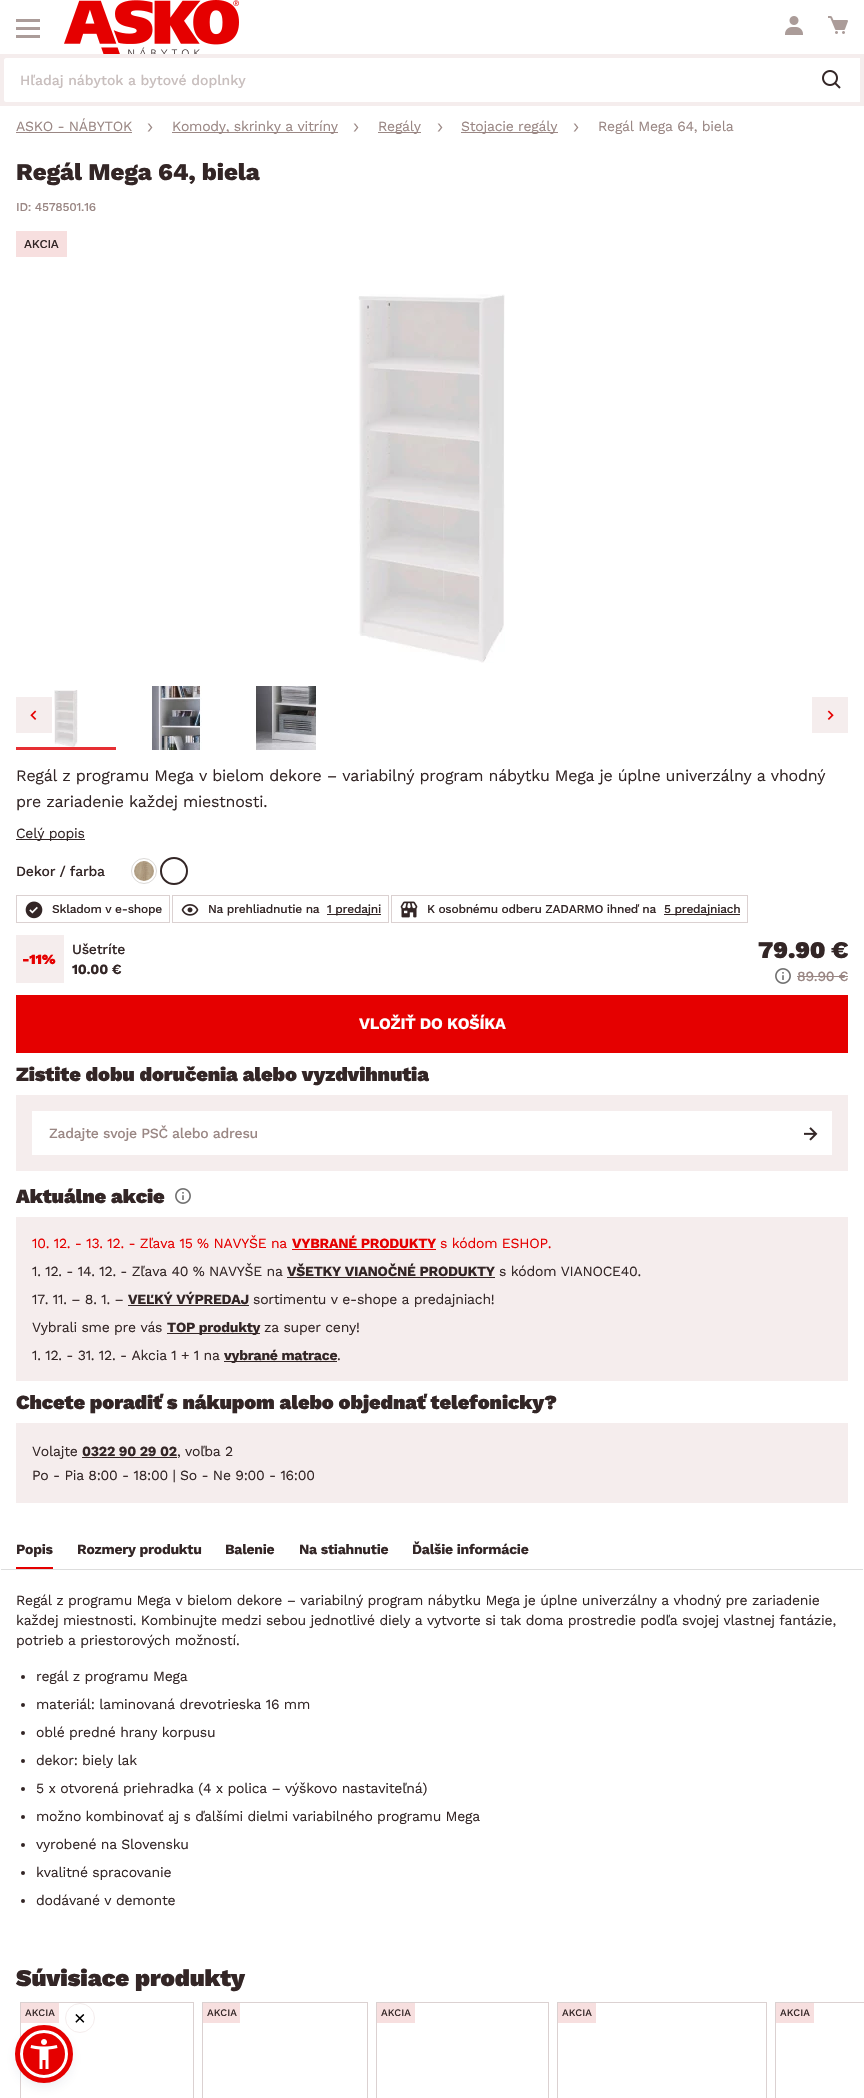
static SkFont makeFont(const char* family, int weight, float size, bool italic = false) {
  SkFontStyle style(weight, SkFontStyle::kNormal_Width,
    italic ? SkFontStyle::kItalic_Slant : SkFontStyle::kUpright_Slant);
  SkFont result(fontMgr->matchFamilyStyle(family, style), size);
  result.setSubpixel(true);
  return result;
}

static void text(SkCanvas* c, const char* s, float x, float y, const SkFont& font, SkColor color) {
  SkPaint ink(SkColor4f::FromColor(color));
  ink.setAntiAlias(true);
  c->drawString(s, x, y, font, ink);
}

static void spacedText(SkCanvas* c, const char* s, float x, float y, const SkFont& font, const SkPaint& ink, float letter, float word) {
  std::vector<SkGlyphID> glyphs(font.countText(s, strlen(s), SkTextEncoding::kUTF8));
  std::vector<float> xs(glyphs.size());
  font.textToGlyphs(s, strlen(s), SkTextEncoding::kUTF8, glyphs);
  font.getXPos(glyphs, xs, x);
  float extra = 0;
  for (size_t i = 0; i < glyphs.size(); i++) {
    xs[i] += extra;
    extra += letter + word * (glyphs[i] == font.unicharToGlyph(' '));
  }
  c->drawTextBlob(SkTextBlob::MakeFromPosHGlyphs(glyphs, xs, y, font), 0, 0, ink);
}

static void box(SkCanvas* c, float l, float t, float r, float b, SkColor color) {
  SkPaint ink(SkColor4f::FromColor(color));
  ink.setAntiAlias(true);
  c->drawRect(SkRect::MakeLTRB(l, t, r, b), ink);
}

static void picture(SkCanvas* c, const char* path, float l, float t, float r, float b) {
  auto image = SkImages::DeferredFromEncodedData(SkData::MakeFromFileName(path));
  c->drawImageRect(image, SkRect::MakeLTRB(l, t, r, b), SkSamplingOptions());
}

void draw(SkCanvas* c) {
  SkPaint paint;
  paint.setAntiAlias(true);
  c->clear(0xffffffff);
  box(c, 16, 19, 40, 22, 0xffab9c99);
  box(c, 16, 27, 40, 30, 0xffab9c99);
  box(c, 16, 35, 40, 38, 0xffab9c99);
  picture(c, "img_01.png", 828, 16, 848, 34);
  picture(c, "img_02.png", 64, 0, 239, 54);
  picture(c, "img_03.png", 785, 16, 803, 35);
  box(c, 0, 54, 864, 106, 0xfff5eded);
  paint.setColor(0xffffffff);
  c->drawPath(SkPathBuilder().moveTo(6, 58).lineTo(860, 58).lineTo(860, 102).lineTo(6, 102).cubicTo(5, 102, 4, 101, 4, 100).lineTo(4, 60).cubicTo(4, 59, 5, 58, 6, 58).close().detach(), paint);
  picture(c, "img_04.png", 822, 70, 841, 89);
  SkFont face1 = makeFont("Work Sans", 500, 14);
  text(c, "Hľadaj nábytok a bytové doplnky", 20, 85, face1, 0xffc8bebd);
  SkFont face2 = makeFont("Work Sans", 400, 14);
  paint.setColor(0xff9a8784);
  spacedText(c, "ASKO - NÁBYTOK", 16, 131, face2, paint, -0.25f, 0);
  box(c, 16, 132, 132, 133, 0xff9a8784);
  picture(c, "img_05.png", 147, 123, 153, 132);
  box(c, 172, 132, 338, 133, 0xff9a8784);
  spacedText(c, "Komody, skrinky a vitríny", 172, 131, face2, paint, -0.25f, 0);
  picture(c, "img_05.png", 353, 123, 359, 132);
  box(c, 378, 132, 421, 133, 0xff9a8784);
  spacedText(c, "Regály", 378, 131, face2, paint, -0.25f, 0);
  picture(c, "img_05.png", 437, 123, 443, 132);
  box(c, 461, 132, 558, 133, 0xff9a8784);
  spacedText(c, "Stojacie regály", 461, 131, face2, paint, -0.25f, 0);
  picture(c, "img_05.png", 573, 123, 579, 132);
  spacedText(c, "Regál Mega 64, biela", 598, 131, face2, paint, -0.25f, 0);
  SkFont face3 = makeFont("Work Sans", 800, 24);
  paint.setColor(0xff332626);
  spacedText(c, "Regál Mega 64, biela", 16, 180, face3, paint, -0.1f, 0);
  SkFont face4 = makeFont("Work Sans", 500, 12);
  paint.setColor(0xff9a8784);
  spacedText(c, "ID: 4578501.16", 16, 211, face4, paint, -0.25f, 0);
  box(c, 16, 231, 67, 257, 0xfff7dfdf);
  paint.setColor(0xff332626);
  spacedText(c, "AKCIA", 24, 248, face4, paint, -0.25f, 0);
  picture(c, "img_06.png", 358, 294, 505, 663);
  picture(c, "img_07.png", 54, 690, 78, 747);
  box(c, 16, 747, 116, 750, 0xffe62f33);
  picture(c, "img_08.png", 152, 686, 202, 750);
  picture(c, "img_09.png", 256, 686, 316, 750);
  box(c, 16, 697, 52, 733, 0xfff5eded);
  picture(c, "img_10.png", 30, 710, 37, 720);
  box(c, 812, 697, 848, 733, 0xfff5eded);
  picture(c, "img_11.png", 827, 710, 834, 720);
  SkFont face5 = makeFont("Work Sans", 400, 16);
  spacedText(c, "Regál z programu Mega v bielom dekore – variabilný program nábytku Mega je úplne univerzálny a vhodný", 16, 781, face5, paint, -0.25f, 0);
  spacedText(c, "pre zariadenie každej miestnosti.", 16, 807, face5, paint, -0.25f, 0);
  box(c, 16, 839, 85, 840, 0xff332626);
  spacedText(c, "Celý popis", 16, 838, face2, paint, -0.25f, 0);
  spacedText(c, "Dekor / farba", 16, 876, face1, paint, -0.25f, 0);
  paint.setStyle(SkPaint::kStroke_Style);
  paint.setStrokeWidth(1);
  paint.setColor(0xffdbd9d7);
  c->drawCircle(144, 871, 12.5f, paint);
  picture(c, "img_12.png", 134, 861, 154, 881);
  paint.setStrokeWidth(2);
  paint.setColor(0xff332626);
  c->drawCircle(174, 871, 13, paint);
  picture(c, "img_13.png", 25, 901, 43, 919);
  paint.setStrokeWidth(1);
  paint.setColor(0xffdbd1d1);
  c->drawRect(SkRect::MakeLTRB(16.5f, 895.5f, 169.5f, 922.5f), paint);
  paint.setStyle(SkPaint::kFill_Style);
  paint.setColor(0xff332626);
  spacedText(c, "Skladom v e-shope", 52, 913, face4, paint, -0.25f, 0);
  picture(c, "img_14.png", 181, 904, 199, 916);
  paint.setStyle(SkPaint::kStroke_Style);
  paint.setColor(0xffdbd1d1);
  c->drawRect(SkRect::MakeLTRB(172.5f, 895.5f, 388.5f, 922.5f), paint);
  paint.setStyle(SkPaint::kFill_Style);
  paint.setColor(0xff332626);
  spacedText(c, "Na prehliadnutie na", 208, 913, face4, paint, -0.25f, 0);
  box(c, 327, 914, 381, 915, 0xff332626);
  spacedText(c, "1 predajni", 327, 913, face4, paint, -0.25f, 0);
  picture(c, "img_15.png", 400, 901, 418, 918);
  paint.setStyle(SkPaint::kStroke_Style);
  paint.setColor(0xffdbd1d1);
  c->drawRect(SkRect::MakeLTRB(391.5f, 895.5f, 747.5f, 922.5f), paint);
  paint.setStyle(SkPaint::kFill_Style);
  paint.setColor(0xff332626);
  spacedText(c, "K osobnému odberu ZADARMO ihneď na", 427, 913, face4, paint, -0.25f, 0);
  box(c, 664, 914, 740, 915, 0xff332626);
  spacedText(c, "5 predajniach", 664, 913, face4, paint, -0.25f, 0);
  box(c, 16, 935, 64, 983, 0xfff5eded);
  SkFont face6 = makeFont("Work Sans", 900, 14);
  paint.setColor(0xffe50000);
  spacedText(c, "-11%", 22, 964, face6, paint, -0.25f, 0);
  paint.setColor(0xff332626);
  spacedText(c, "Ušetríte", 72, 954, face1, paint, -0.25f, 0);
  SkFont face7 = makeFont("Work Sans", 700, 14);
  spacedText(c, "10.00 €", 72, 974, face7, paint, -0.25f, 0);
  SkFont face8 = makeFont("Work Sans", 900, 24);
  spacedText(c, "79.90 €", 758, 958, face8, paint, -0.1f, 0);
  picture(c, "img_16.png", 775, 968, 791, 984);
  paint.setColor(0xff9a8784);
  spacedText(c, "89.90 €", 797, 981, face1, paint, -0.25f, 0);
  box(c, 797, 976, 848, 977, 0xff9a8784);
  box(c, 16, 995, 848, 1053, 0xffe50000);
  SkFont face9 = makeFont("Work Sans", 700, 16);
  paint.setColor(0xffffffff);
  spacedText(c, "VLOŽIŤ DO KOŠÍKA", 359, 1029, face9, paint, -0.25f, 0);
  SkFont face10 = makeFont("Work Sans", 900, 20);
  paint.setColor(0xff332626);
  spacedText(c, "Zistite dobu doručenia alebo vyzdvihnutia", 16, 1081, face10, paint, -0.1f, 0);
  box(c, 16, 1095, 848, 1171, 0xfff5eded);
  box(c, 32, 1111, 832, 1155, 0xffffffff);
  picture(c, "img_17.png", 804, 1127, 818, 1141);
  paint.setColor(0xff9a8784);
  spacedText(c, "Zadajte svoje PSČ alebo adresu", 49, 1138, face1, paint, -0.25f, 0);
  paint.setColor(0xff332626);
  spacedText(c, "Aktuálne akcie", 16, 1203, face10, paint, -0.1f, 0);
  picture(c, "img_16.png", 175, 1188, 191, 1204);
  box(c, 16, 1217, 848, 1381, 0xfff5eded);
  paint.setColor(0xffe50000);
  spacedText(c, "10. 12. - 13. 12. - Zľava 15 % NAVYŠE na", 32, 1248, face2, paint, -0.25f, 0);
  spacedText(c, "VYBRANÉ PRODUKTY", 292, 1248, face7, paint, -0.25f, 0);
  box(c, 292, 1249, 436, 1250, 0xffe50000);
  spacedText(c, "s kódom ESHOP.", 440, 1248, face2, paint, -0.25f, 0);
  paint.setColor(0xff332626);
  spacedText(c, "1. 12. - 14. 12. - Zľava 40 % NAVYŠE na", 32, 1276, face2, paint, -0.25f, 0);
  spacedText(c, "VŠETKY VIANOČNÉ PRODUKTY", 287, 1276, face7, paint, -0.25f, 0);
  box(c, 287, 1277, 495, 1278, 0xff332626);
  spacedText(c, "s kódom VIANOCE40.", 499, 1276, face2, paint, -0.25f, 0);
  spacedText(c, "17. 11. – 8. 1. –", 32, 1304, face2, paint, -0.25f, 0);
  spacedText(c, "VEĽKÝ VÝPREDAJ", 128, 1304, face7, paint, -0.25f, 0);
  box(c, 128, 1305, 249, 1306, 0xff332626);
  spacedText(c, "sortimentu v e-shope a predajniach!", 253, 1304, face2, paint, -0.25f, 0);
  spacedText(c, "Vybrali sme pre vás", 32, 1332, face2, paint, -0.25f, 0);
  box(c, 167, 1333, 260, 1334, 0xff332626);
  spacedText(c, "TOP produkty", 167, 1332, face7, paint, -0.25f, 0);
  spacedText(c, "za super ceny!", 264, 1332, face2, paint, -0.25f, 0);
  spacedText(c, "1. 12. - 31. 12. - Akcia 1 + 1 na", 32, 1360, face2, paint, -0.25f, 0);
  box(c, 224, 1361, 337, 1362, 0xff332626);
  spacedText(c, "vybrané matrace", 224, 1360, face7, paint, -0.25f, 0);
  spacedText(c, ".", 337, 1360, face2, paint, -0.25f, 0);
  spacedText(c, "Chcete poradiť s nákupom alebo objednať telefonicky?", 16, 1409, face10, paint, -0.1f, 0);
  box(c, 16, 1423, 848, 1503, 0xfff5eded);
  spacedText(c, "Volajte", 32, 1456, face2, paint, -0.25f, 0);
  spacedText(c, "0322 90 29 02", 82, 1456, face7, paint, -0.25f, 0);
  box(c, 82, 1457, 177, 1458, 0xff332626);
  spacedText(c, ", voľba 2", 177, 1456, face2, paint, -0.25f, 0);
  spacedText(c, "Po - Pia 8:00 - 18:00 | So - Ne 9:00 - 16:00", 32, 1480, face2, paint, -0.25f, 0);
  spacedText(c, "Popis", 16, 1554, face7, paint, -0.25f, 0);
  box(c, 16, 1567, 53, 1569, 0xffe50000);
  spacedText(c, "Rozmery produktu", 77, 1554, face7, paint, -0.25f, 0);
  spacedText(c, "Balenie", 225, 1554, face7, paint, -0.25f, 0);
  spacedText(c, "Na stiahnutie", 299, 1554, face7, paint, -0.25f, 0);
  spacedText(c, "Ďalšie informácie", 412, 1554, face7, paint, -0.25f, 0);
  box(c, 1, 1569, 863, 1570, 0xffdddddd);
  spacedText(c, "Regál z programu Mega v bielom dekore – variabilný program nábytku Mega je úplne univerzálny a vhodný pre zariadenie", 16, 1605, face2, paint, -0.25f, 0);
  spacedText(c, "každej miestnosti. Kombinujte medzi sebou jednotlivé diely a vytvorte si tak doma prostredie podľa svojej vlastnej fantázie,", 16, 1625, face2, paint, -0.25f, 0);
  spacedText(c, "potrieb a priestorových možností.", 16, 1645, face2, paint, -0.25f, 0);
  c->drawCircle(23, 1677, 2, paint);
  spacedText(c, "regál z programu Mega", 36, 1681, face2, paint, -0.25f, 0);
  c->drawCircle(23, 1705, 2, paint);
  spacedText(c, "materiál: laminovaná drevotrieska 16 mm", 36, 1709, face2, paint, -0.25f, 0);
  c->drawCircle(23, 1733, 2, paint);
  spacedText(c, "oblé predné hrany korpusu", 36, 1737, face2, paint, -0.25f, 0);
  c->drawCircle(23, 1761, 2, paint);
  spacedText(c, "dekor: biely lak", 36, 1765, face2, paint, -0.25f, 0);
  c->drawCircle(23, 1789, 2, paint);
  spacedText(c, "5 x otvorená priehradka (4 x polica – výškovo nastaviteľná)", 36, 1793, face2, paint, -0.25f, 0);
  c->drawCircle(23, 1817, 2, paint);
  spacedText(c, "možno kombinovať aj s ďalšími dielmi variabilného programu Mega", 36, 1821, face2, paint, -0.25f, 0);
  c->drawCircle(23, 1845, 2, paint);
  spacedText(c, "vyrobené na Slovensku", 36, 1849, face2, paint, -0.25f, 0);
  c->drawCircle(23, 1873, 2, paint);
  spacedText(c, "kvalitné spracovanie", 36, 1877, face2, paint, -0.25f, 0);
  c->drawCircle(23, 1901, 2, paint);
  spacedText(c, "dodávané v demonte", 36, 1905, face2, paint, -0.25f, 0);
  spacedText(c, "Súvisiace produkty", 16, 1986, face8, paint, -0.1f, 0);
  paint.setStyle(SkPaint::kStroke_Style);
  paint.setColor(0xffdbd1d1);
  c->drawRect(SkRect::MakeLTRB(20.5f, 2002.5f, 193.5f, 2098.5f), paint);
  box(c, 21, 2003, 59, 2023, 0xfff7dfdf);
  SkFont face11 = makeFont("Work Sans", 500, 10);
  text(c, "AKCIA", 25, 2016, face11, 0xff332626);
  c->drawRect(SkRect::MakeLTRB(202.5f, 2002.5f, 367.5f, 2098.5f), paint);
  box(c, 203, 2003, 240, 2023, 0xfff7dfdf);
  text(c, "AKCIA", 207, 2016, face11, 0xff332626);
  c->drawRect(SkRect::MakeLTRB(376.5f, 2002.5f, 548.5f, 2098.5f), paint);
  box(c, 377, 2003, 415, 2023, 0xfff7dfdf);
  text(c, "AKCIA", 381, 2016, face11, 0xff332626);
  c->drawRect(SkRect::MakeLTRB(557.5f, 2002.5f, 766.5f, 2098.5f), paint);
  box(c, 558, 2003, 596, 2023, 0xfff7dfdf);
  text(c, "AKCIA", 562, 2016, face11, 0xff332626);
  c->drawRect(SkRect::MakeLTRB(775.5f, 2002.5f, 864.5f, 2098.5f), paint);
  box(c, 776, 2003, 814, 2023, 0xfff7dfdf);
  text(c, "AKCIA", 780, 2016, face11, 0xff332626);
  paint.setStyle(SkPaint::kFill_Style);
  paint.setColor(0x335d6494);
  paint.setMaskFilter(SkMaskFilter::MakeBlur(kNormal_SkBlurStyle, 2));
  c->drawRoundRect(SkRect::MakeLTRB(20, 2032, 68, 2080), 24, 24, paint);
  paint.setMaskFilter(nullptr);
  paint.setColor(0x26252c61);
  paint.setMaskFilter(SkMaskFilter::MakeBlur(kNormal_SkBlurStyle, 7.5f));
  c->drawRoundRect(SkRect::MakeLTRB(20, 2035, 68, 2083), 24, 24, paint);
  paint.setMaskFilter(nullptr);
  paint.setColor(0xffe50000);
  c->drawCircle(44, 2054, 22.5f, paint);
  paint.setStyle(SkPaint::kStroke_Style);
  paint.setStrokeWidth(3);
  paint.setColor(0xffffffff);
  c->drawCircle(44, 2054, 22.5f, paint);
  paint.setStrokeWidth(5);
  paint.setColor(0xffe50000);
  c->drawCircle(44, 2054, 26.5f, paint);
  paint.setStrokeWidth(1);
  paint.setColor(0xfff5eded);
  c->drawCircle(80, 2018, 14.5f, paint);
  SkFont face12 = makeFont("Liberation Sans", 400, 20);
  text(c, "×", 74, 2025, face12, 0xff000000);
  picture(c, "img_18.png", 30, 2039, 58, 2069);
}
